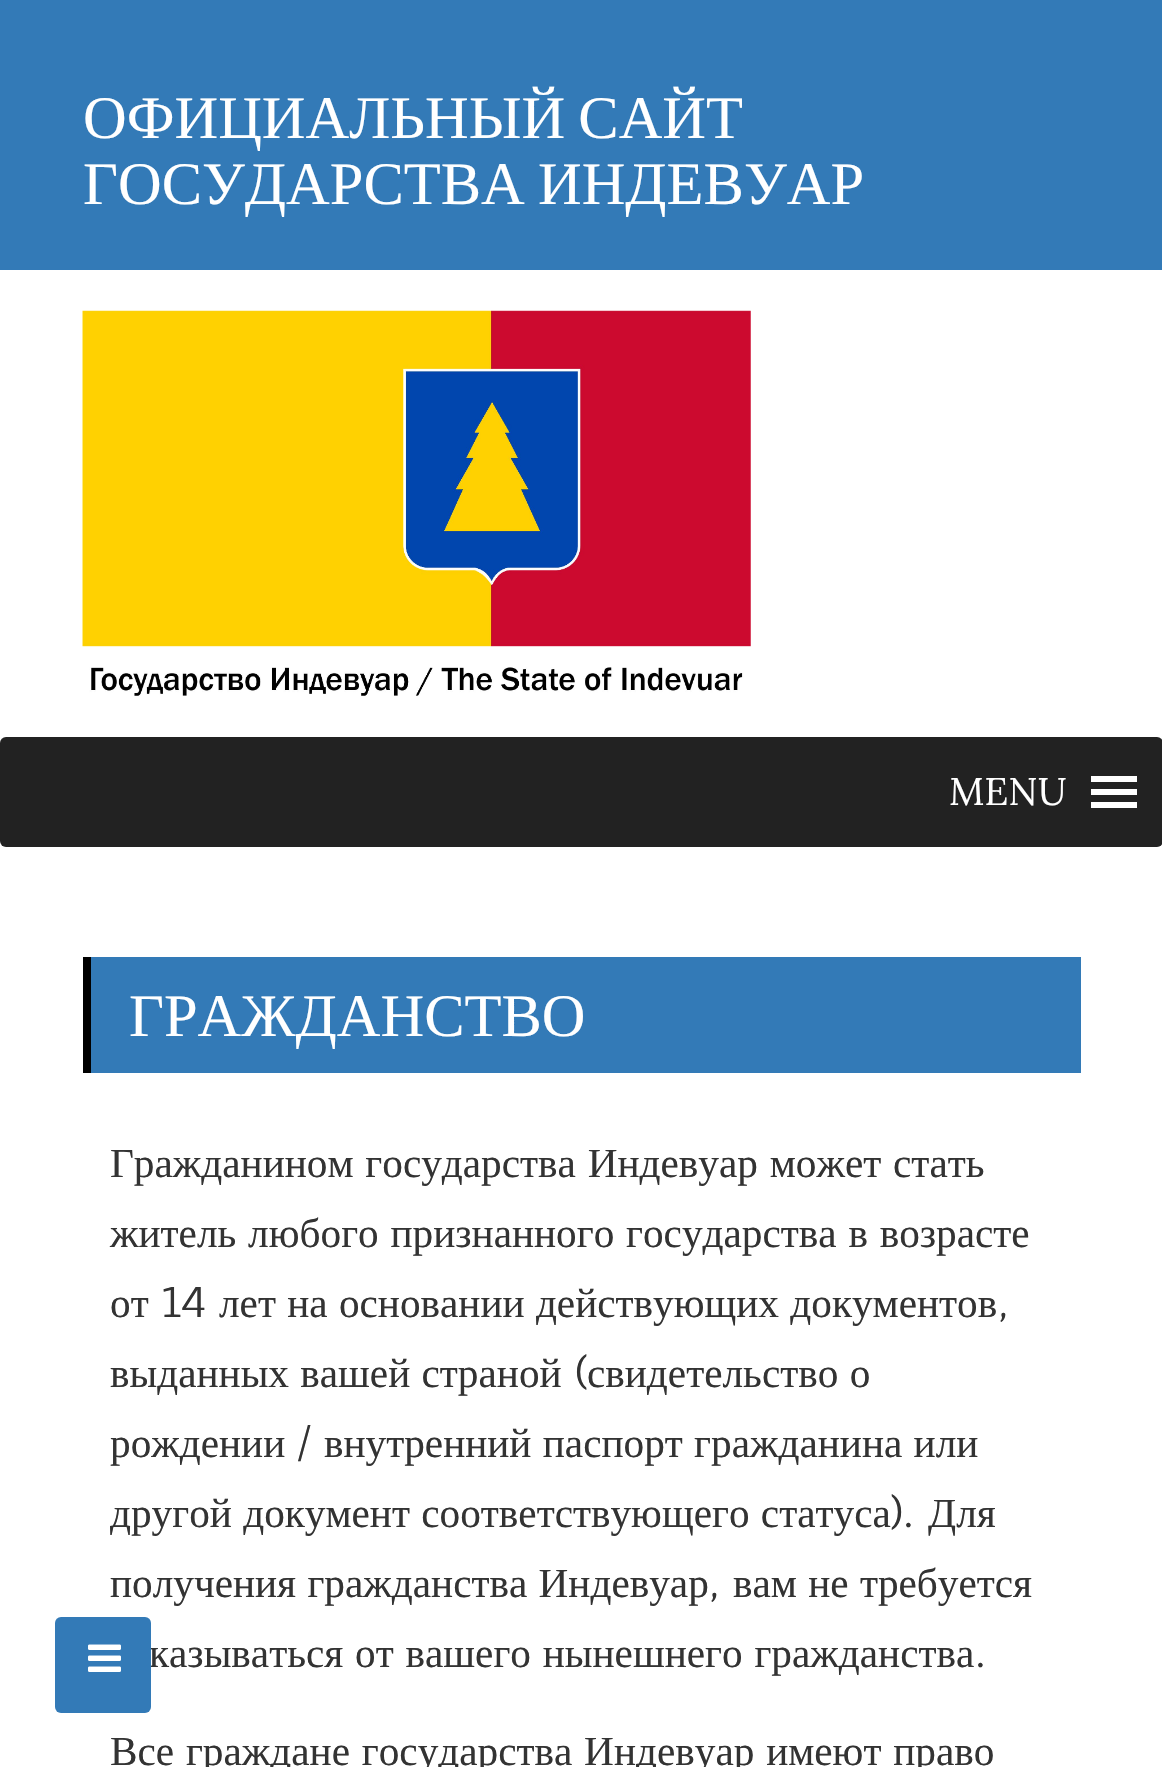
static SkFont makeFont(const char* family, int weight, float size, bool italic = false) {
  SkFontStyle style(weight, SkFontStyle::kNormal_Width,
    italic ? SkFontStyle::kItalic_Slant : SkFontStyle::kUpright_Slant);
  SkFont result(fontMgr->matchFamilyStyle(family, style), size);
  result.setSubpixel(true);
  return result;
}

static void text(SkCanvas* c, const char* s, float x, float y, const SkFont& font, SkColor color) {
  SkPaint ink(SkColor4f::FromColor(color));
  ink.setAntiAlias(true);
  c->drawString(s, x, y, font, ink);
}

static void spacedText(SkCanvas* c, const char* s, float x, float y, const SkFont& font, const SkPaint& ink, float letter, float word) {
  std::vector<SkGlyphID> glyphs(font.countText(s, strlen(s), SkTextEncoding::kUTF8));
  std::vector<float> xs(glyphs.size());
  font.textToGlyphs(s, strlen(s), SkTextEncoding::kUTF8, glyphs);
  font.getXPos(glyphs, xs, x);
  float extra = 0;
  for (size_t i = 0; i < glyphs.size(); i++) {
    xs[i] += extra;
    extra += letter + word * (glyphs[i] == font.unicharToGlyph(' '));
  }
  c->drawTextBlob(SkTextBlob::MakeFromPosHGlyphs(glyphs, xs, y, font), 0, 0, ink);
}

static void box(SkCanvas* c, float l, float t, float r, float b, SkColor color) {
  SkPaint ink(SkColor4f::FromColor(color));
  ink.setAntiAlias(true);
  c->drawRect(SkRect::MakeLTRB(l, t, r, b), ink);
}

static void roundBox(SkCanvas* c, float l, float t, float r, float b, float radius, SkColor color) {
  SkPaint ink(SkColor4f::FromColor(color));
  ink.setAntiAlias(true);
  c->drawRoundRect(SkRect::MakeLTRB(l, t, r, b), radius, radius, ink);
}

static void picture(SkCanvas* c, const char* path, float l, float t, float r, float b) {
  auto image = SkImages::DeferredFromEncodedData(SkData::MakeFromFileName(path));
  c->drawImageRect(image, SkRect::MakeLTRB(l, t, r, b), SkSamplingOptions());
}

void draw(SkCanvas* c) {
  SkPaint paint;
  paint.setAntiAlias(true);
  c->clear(0xffffffff);
  box(c, 0, 0, 1162, 270, 0xff337ab7);
  SkFont face1 = makeFont("Liberation Serif", 400, 60.5f);
  paint.setColor(0xffffffff);
  spacedText(c, "ОФИЦИАЛЬНЫЙ САЙТ", 83, 138, face1, paint, 0, -2);
  spacedText(c, "ГОСУДАРСТВА ИНДЕВУАР", 83, 204, face1, paint, 0, -2);
  picture(c, "img_01.png", 82, 310, 751, 696);
  roundBox(c, 0, 737, 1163, 847, 6, 0xff222222);
  SkFont face2 = makeFont("Lora", 400, 38.5f);
  text(c, "MENU", 949, 805, face2, 0xffffffff);
  c->drawPath(SkPathBuilder().moveTo(1091, 808).lineTo(1137, 808).lineTo(1137, 802).lineTo(1091, 802).close().moveTo(1091, 776).lineTo(1091, 782).lineTo(1137, 782).lineTo(1137, 776).close().moveTo(1091, 795).lineTo(1137, 795).lineTo(1137, 789).lineTo(1091, 789).close().detach(), paint);
  SkFont face3 = makeFont("Liberation Serif", 400, 41.25f);
  paint.setColor(0xff333333);
  spacedText(c, "казываться от вашего нынешнего гражданства", 149, 1667, face3, paint, 0, 1.5f);
  roundBox(c, 55, 1617, 151, 1713, 6, 0xff337ab7);
  picture(c, "img_02.png", 88, 1644, 121, 1672);
  box(c, 91, 957, 1081, 1073, 0xff337ab7);
  box(c, 83, 957, 91, 1073, 0xff000000);
  text(c, "ГРАЖДАНСТВО", 129, 1036, face1, 0xffffffff);
  spacedText(c, "Гражданином государства Индевуар может стать", 110, 1177, face3, paint, 0, 1.5f);
  spacedText(c, "житель любого признанного государства в возрасте", 110, 1247, face3, paint, 0, 1.5f);
  text(c, "от", 110, 1317, face3, 0xff333333);
  SkFont face4 = makeFont("Fauna One", 400, 41.25f);
  text(c, "14", 162, 1317, face4, 0xff333333);
  spacedText(c, "лет на основании действующих документов", 219, 1317, face3, paint, 0, 1);
  text(c, ",", 998, 1317, face4, 0xff333333);
  spacedText(c, "выданных вашей страной", 110, 1387, face3, paint, 0, 1);
  text(c, "(", 575, 1387, face4, 0xff333333);
  spacedText(c, "свидетельство о", 587, 1387, face3, paint, 0, 1);
  text(c, "рождении", 110, 1457, face3, 0xff333333);
  text(c, "/", 298, 1457, face4, 0xff333333);
  spacedText(c, "внутренний паспорт гражданина или", 324, 1457, face3, paint, 0, 1);
  spacedText(c, "другой документ соответствующего статуса", 110, 1527, face3, paint, 0, 1);
  text(c, ").", 891, 1527, face4, 0xff333333);
  text(c, "Для", 928, 1527, face3, 0xff333333);
  spacedText(c, "получения гражданства Индевуар", 110, 1597, face3, paint, 0, 1);
  text(c, ",", 709, 1597, face4, 0xff333333);
  spacedText(c, "вам не требуется", 733, 1597, face3, paint, 0, 1);
  text(c, ".", 975, 1667, face4, 0xff333333);
  spacedText(c, "Все граждане государства Индевуар имеют право", 110, 1765, face3, paint, 0, 1.5f);
}
